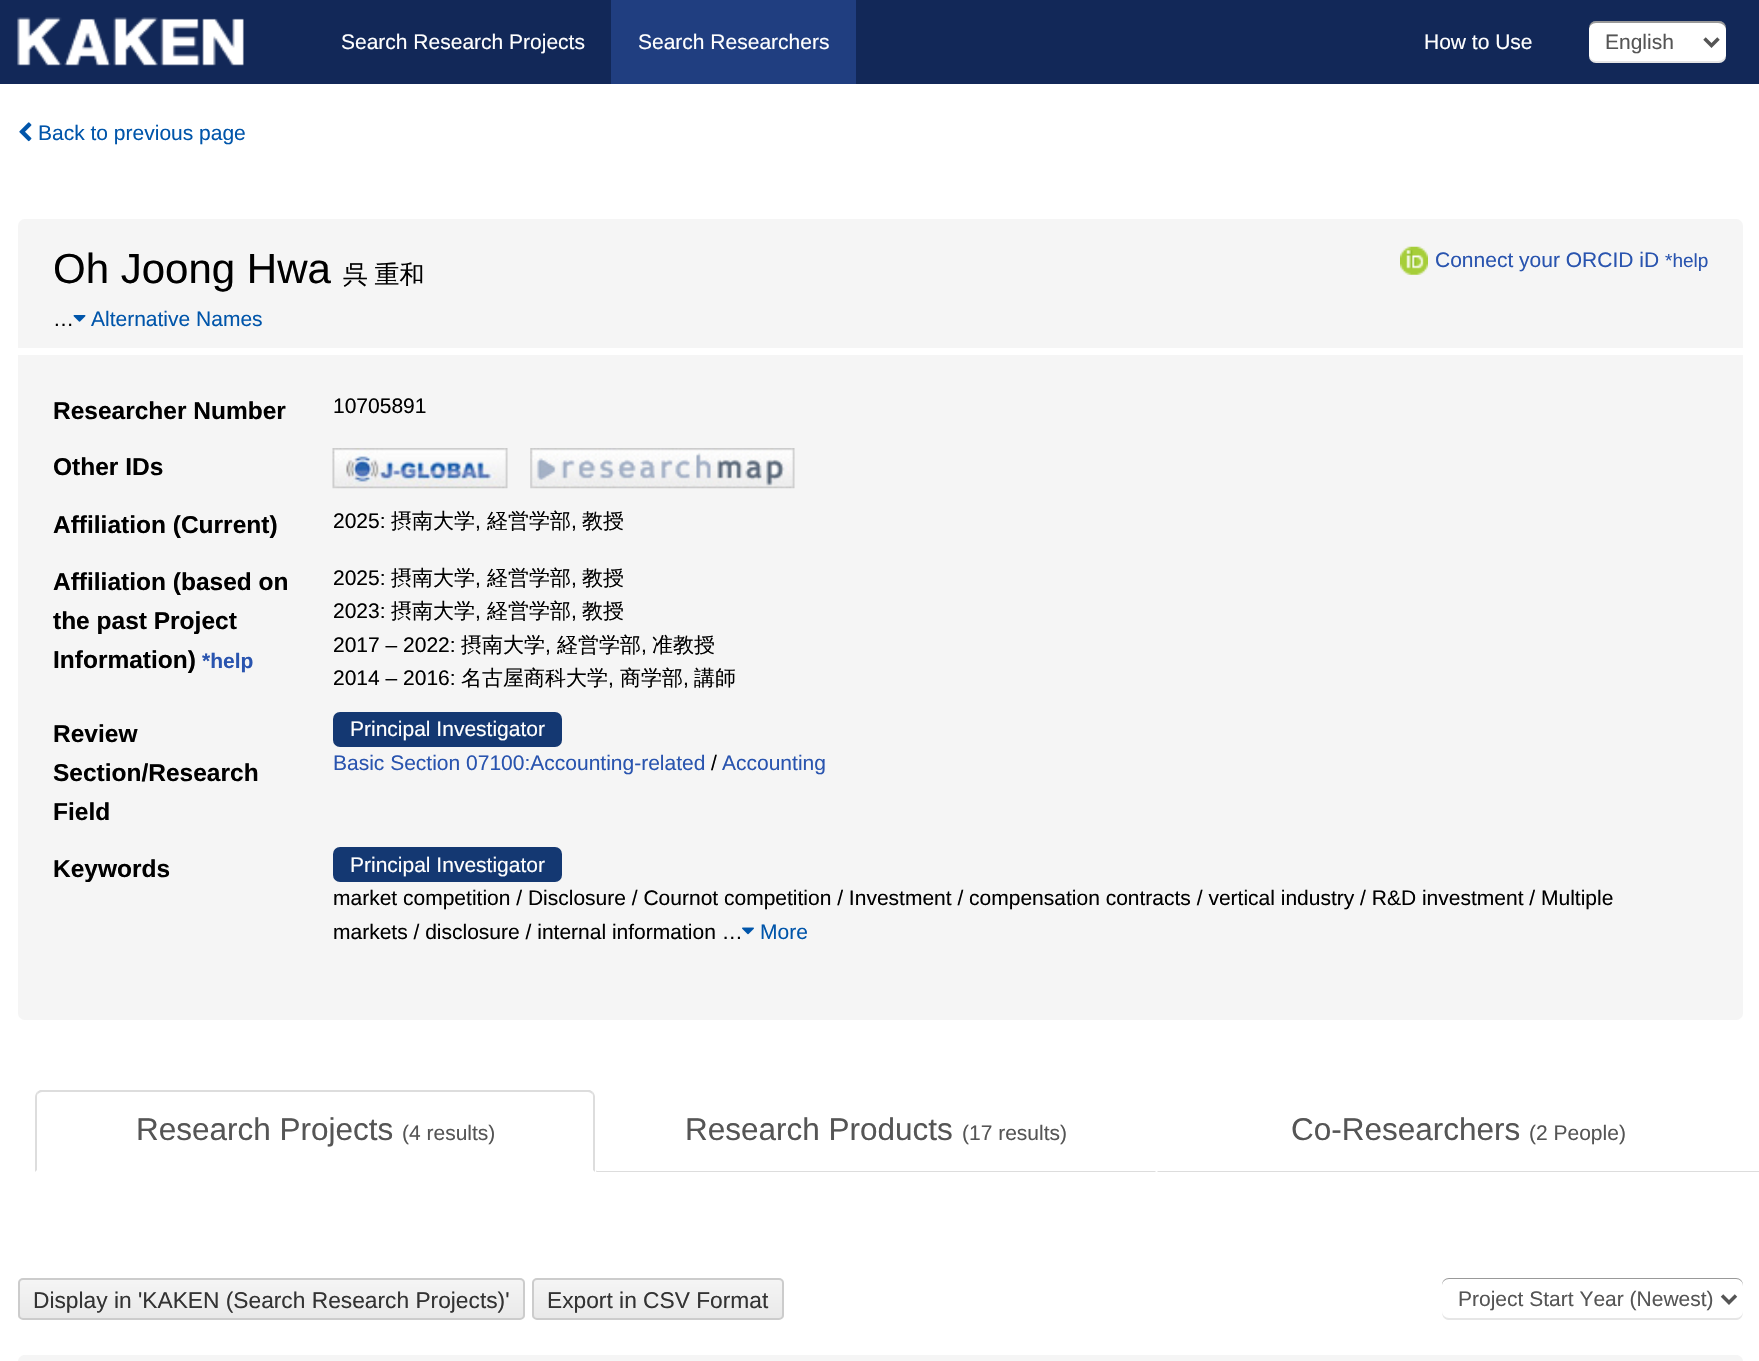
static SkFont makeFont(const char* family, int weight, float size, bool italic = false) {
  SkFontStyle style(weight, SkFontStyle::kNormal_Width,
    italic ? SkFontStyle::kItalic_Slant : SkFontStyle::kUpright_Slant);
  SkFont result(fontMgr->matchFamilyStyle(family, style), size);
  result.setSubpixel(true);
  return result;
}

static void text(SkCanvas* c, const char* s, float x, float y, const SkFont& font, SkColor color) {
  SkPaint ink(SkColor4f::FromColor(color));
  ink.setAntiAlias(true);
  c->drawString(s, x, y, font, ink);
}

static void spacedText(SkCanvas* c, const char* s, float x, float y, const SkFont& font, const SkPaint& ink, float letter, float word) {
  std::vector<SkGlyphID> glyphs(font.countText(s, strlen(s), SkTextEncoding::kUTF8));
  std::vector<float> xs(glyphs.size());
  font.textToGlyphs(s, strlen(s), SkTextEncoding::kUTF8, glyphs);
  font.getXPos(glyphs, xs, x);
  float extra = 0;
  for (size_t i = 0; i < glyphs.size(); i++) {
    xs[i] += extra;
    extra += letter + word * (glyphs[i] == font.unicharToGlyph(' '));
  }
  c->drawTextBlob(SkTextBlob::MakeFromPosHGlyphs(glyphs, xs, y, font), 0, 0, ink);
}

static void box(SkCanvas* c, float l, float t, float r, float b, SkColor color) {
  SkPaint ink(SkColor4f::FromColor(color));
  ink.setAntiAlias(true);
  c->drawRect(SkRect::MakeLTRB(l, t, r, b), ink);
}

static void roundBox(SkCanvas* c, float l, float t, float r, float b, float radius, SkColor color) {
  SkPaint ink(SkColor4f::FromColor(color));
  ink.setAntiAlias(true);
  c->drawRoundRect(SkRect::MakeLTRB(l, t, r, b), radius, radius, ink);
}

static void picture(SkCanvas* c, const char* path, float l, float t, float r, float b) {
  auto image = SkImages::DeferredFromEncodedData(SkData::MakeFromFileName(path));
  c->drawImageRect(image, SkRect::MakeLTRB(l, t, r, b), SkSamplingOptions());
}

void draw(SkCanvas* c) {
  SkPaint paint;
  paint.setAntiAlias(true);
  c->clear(0xffffffff);
  box(c, 0, 0, 1759, 84, 0xff122858);
  picture(c, "img_01.png", 17, 17, 244, 66);
  SkFont face1 = makeFont("Liberation Sans", 400, 21);
  text(c, "Search Research Projects", 341, 49, face1, 0xffffffff);
  box(c, 611, 0, 856, 84, 0xff203e80);
  text(c, "Search Researchers", 638, 49, face1, 0xffffffff);
  text(c, "How to Use", 1424, 49, face1, 0xffffffff);
  roundBox(c, 1589, 21, 1726, 63, 7, 0xffffffff);
  paint.setColor(0x1a000000);
  c->drawPath(SkPathBuilder().moveTo(1589, 54).lineTo(1589, 56).cubicTo(1589, 60, 1592, 63, 1596, 63).lineTo(1719, 63).cubicTo(1723, 63, 1726, 60, 1726, 56).lineTo(1726, 54).cubicTo(1726, 58, 1722, 61, 1718, 61).lineTo(1596, 61).cubicTo(1592, 61, 1589, 58, 1589, 54).close().detach(), paint);
  paint.setColor(0x66000000);
  c->drawPath(SkPathBuilder().moveTo(1596, 23).lineTo(1718, 23).cubicTo(1722, 23, 1726, 26, 1726, 30).lineTo(1726, 28).cubicTo(1726, 24, 1723, 21, 1719, 21).lineTo(1596, 21).cubicTo(1592, 21, 1589, 24, 1589, 28).lineTo(1589, 30).cubicTo(1589, 26, 1592, 23, 1596, 23).close().detach(), paint);
  paint.setStyle(SkPaint::kStroke_Style);
  paint.setStrokeWidth(3.5f);
  paint.setColor(0xff555555);
  c->drawPath(SkPathBuilder().moveTo(1704.5f, 38.5f).lineTo(1711.5f, 45.5f).lineTo(1718.5f, 38.5f).detach(), paint);
  text(c, "English", 1605, 49, face1, 0xff555555);
  picture(c, "img_02.png", 19, 122, 32, 142);
  text(c, "Back to previous page", 38, 140, face1, 0xff0055aa);
  roundBox(c, 18, 219, 1743, 1020, 7, 0xfff5f5f5);
  SkFont face2 = makeFont("Liberation Sans", 400, 42);
  text(c, "Oh Joong Hwa", 53, 283, face2, 0xff000000);
  SkFont face3 = makeFont("WenQuanYi Zen Hei", 500, 25);
  paint.setStyle(SkPaint::kFill_Style);
  paint.setColor(0xff000000);
  spacedText(c, "呉 重和", 343, 283, face3, paint, 0, -1);
  picture(c, "img_03.png", 1400, 246, 1428, 275);
  text(c, "Connect your ORCID iD", 1435, 267, face1, 0xff2954af);
  SkFont face4 = makeFont("Liberation Sans", 400, 19);
  text(c, "*help", 1665, 267, face4, 0xff2954af);
  text(c, "…", 53, 326, face1, 0xff000000);
  picture(c, "img_04.png", 73, 315, 86, 322);
  text(c, "Alternative Names", 91, 326, face1, 0xff0055aa);
  box(c, 18, 348, 1743, 355, 0xffffffff);
  SkFont face5 = makeFont("Liberation Sans", 700, 24.5f);
  text(c, "Researcher Number", 53, 419, face5, 0xff000000);
  text(c, "10705891", 333, 413, face1, 0xff000000);
  text(c, "Other IDs", 53, 475, face5, 0xff000000);
  picture(c, "img_05.png", 332, 448, 508, 489);
  picture(c, "img_06.png", 530, 448, 795, 489);
  text(c, "Affiliation (Current)", 53, 533, face5, 0xff000000);
  text(c, "2025:", 333, 528, face1, 0xff000000);
  SkFont face6 = makeFont("WenQuanYi Zen Hei", 500, 21);
  text(c, "摂南大学", 391, 528, face6, 0xff000000);
  text(c, ",", 475, 528, face1, 0xff000000);
  text(c, "経営学部", 487, 528, face6, 0xff000000);
  text(c, ",", 571, 528, face1, 0xff000000);
  text(c, "教授", 582, 528, face6, 0xff000000);
  text(c, "Affiliation (based on", 53, 590, face5, 0xff000000);
  text(c, "the past Project", 53, 629, face5, 0xff000000);
  text(c, "Information)", 53, 668, face5, 0xff000000);
  SkFont face7 = makeFont("Liberation Sans", 700, 21);
  text(c, "*help", 202, 668, face7, 0xff2954af);
  text(c, "2025:", 333, 585, face1, 0xff000000);
  text(c, "摂南大学", 391, 585, face6, 0xff000000);
  text(c, ",", 475, 585, face1, 0xff000000);
  text(c, "経営学部", 487, 585, face6, 0xff000000);
  text(c, ",", 571, 585, face1, 0xff000000);
  text(c, "教授", 582, 585, face6, 0xff000000);
  text(c, "2023:", 333, 618, face1, 0xff000000);
  text(c, "摂南大学", 391, 618, face6, 0xff000000);
  text(c, ",", 475, 618, face1, 0xff000000);
  text(c, "経営学部", 487, 618, face6, 0xff000000);
  text(c, ",", 571, 618, face1, 0xff000000);
  text(c, "教授", 582, 618, face6, 0xff000000);
  text(c, "2017 – 2022:", 333, 652, face1, 0xff000000);
  text(c, "摂南大学", 461, 652, face6, 0xff000000);
  text(c, ",", 545, 652, face1, 0xff000000);
  text(c, "経営学部", 557, 652, face6, 0xff000000);
  text(c, ",", 641, 652, face1, 0xff000000);
  text(c, "准教授", 652, 652, face6, 0xff000000);
  text(c, "2014 – 2016:", 333, 685, face1, 0xff000000);
  text(c, "名古屋商科大学", 461, 685, face6, 0xff000000);
  text(c, ",", 608, 685, face1, 0xff000000);
  text(c, "商学部", 620, 685, face6, 0xff000000);
  text(c, ",", 683, 685, face1, 0xff000000);
  text(c, "講師", 694, 685, face6, 0xff000000);
  text(c, "Review", 53, 742, face5, 0xff000000);
  text(c, "Section/Research", 53, 781, face5, 0xff000000);
  text(c, "Field", 53, 820, face5, 0xff000000);
  roundBox(c, 333, 712, 562, 747, 7, 0xff143872);
  text(c, "Principal Investigator", 350, 736, face1, 0xffffffff);
  text(c, "Basic Section 07100:Accounting-related", 333, 770, face1, 0xff2954af);
  text(c, "/", 711, 770, face1, 0xff000000);
  text(c, "Accounting", 722, 770, face1, 0xff2954af);
  text(c, "Keywords", 53, 877, face5, 0xff000000);
  roundBox(c, 333, 847, 562, 882, 7, 0xff143872);
  text(c, "Principal Investigator", 350, 872, face1, 0xffffffff);
  text(c, "market competition / Disclosure / Cournot competition / Investment / compensation contracts / vertical industry / R&D investment / Multiple", 333, 905, face1, 0xff000000);
  text(c, "markets / disclosure / internal information …", 333, 939, face1, 0xff000000);
  picture(c, "img_07.png", 742, 927, 754, 935);
  text(c, "More", 760, 939, face1, 0xff0055aa);
  paint.setColor(0xffdddddd);
  c->drawPath(SkPathBuilder().moveTo(42, 1092).cubicTo(40, 1092, 39, 1093, 38, 1094).lineTo(37, 1092).lineTo(40, 1090).lineTo(590, 1090).lineTo(593, 1092).lineTo(592, 1094).cubicTo(591, 1093, 590, 1092, 588, 1092).close().detach(), paint);
  c->drawPath(SkPathBuilder().moveTo(595, 1172).lineTo(595, 1097).cubicTo(595, 1095, 594, 1093, 593, 1092).lineTo(592, 1094).cubicTo(593, 1094, 593, 1096, 593, 1097).lineTo(593, 1170).close().detach(), paint);
  c->drawPath(SkPathBuilder().moveTo(35, 1097).lineTo(35, 1172).lineTo(37, 1170).lineTo(37, 1097).cubicTo(37, 1096, 37, 1094, 38, 1094).lineTo(37, 1092).cubicTo(36, 1093, 35, 1095, 35, 1097).close().detach(), paint);
  SkFont face8 = makeFont("Liberation Sans", 400, 31.5f);
  text(c, "Research Projects", 136, 1140, face8, 0xff555555);
  text(c, "(4 results)", 402, 1140, face1, 0xff555555);
  c->drawPath(SkPathBuilder().moveTo(1156, 1172).lineTo(596, 1172).lineTo(597, 1170).lineTo(597, 1171).lineTo(1155, 1171).close().detach(), paint);
  text(c, "Research Products", 685, 1140, face8, 0xff555555);
  text(c, "(17 results)", 962, 1140, face1, 0xff555555);
  c->drawPath(SkPathBuilder().moveTo(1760, 1172).lineTo(1759, 1171).lineTo(1158, 1171).lineTo(1157, 1172).close().detach(), paint);
  text(c, "Co-Researchers", 1291, 1140, face8, 0xff555555);
  text(c, "(2 People)", 1529, 1140, face1, 0xff555555);
  c->save();
  c->clipPath(SkPathBuilder().moveTo(23, 1278).lineTo(520, 1278).cubicTo(523, 1278, 525, 1280, 525, 1283).lineTo(525, 1315).cubicTo(525, 1318, 523, 1320, 520, 1320).lineTo(23, 1320).cubicTo(20, 1320, 18, 1318, 18, 1315).lineTo(18, 1283).cubicTo(18, 1280, 20, 1278, 23, 1278).close().detach(), true);
  {
    const SkColor colors[] = {0xfff5f5f5, 0xffe9e9e9};
    const float stops[] = {0, 1};
    const SkPoint ends[] = {{271, 1279}, {271, 1318}};
    paint.setShader(SkGradientShader::MakeLinear(ends, colors, stops, 2, SkTileMode::kClamp));
    paint.setAlpha(255);
  }
  c->drawRect(SkRect::MakeLTRB(18, 1279, 525, 1318), paint);
  c->restore();
  paint.setStyle(SkPaint::kStroke_Style);
  paint.setStrokeWidth(2);
  paint.setShader(nullptr);
  paint.setColor(0xffcccccc);
  c->drawRoundRect(SkRect::MakeLTRB(19, 1279, 524, 1319), 4, 4, paint);
  SkFont face9 = makeFont("Liberation Sans", 400, 22.75f);
  text(c, "Display in 'KAKEN (Search Research Projects)'", 33, 1308, face9, 0xff333333);
  c->save();
  c->clipPath(SkPathBuilder().moveTo(537, 1278).lineTo(779, 1278).cubicTo(782, 1278, 784, 1280, 784, 1283).lineTo(784, 1315).cubicTo(784, 1318, 782, 1320, 779, 1320).lineTo(537, 1320).cubicTo(534, 1320, 532, 1318, 532, 1315).lineTo(532, 1283).cubicTo(532, 1280, 534, 1278, 537, 1278).close().detach(), true);
  paint.setStyle(SkPaint::kFill_Style);
  {
    const SkColor colors[] = {0xfff5f5f5, 0xffe9e9e9};
    const float stops[] = {0, 1};
    const SkPoint ends[] = {{658, 1279}, {658, 1318}};
    paint.setShader(SkGradientShader::MakeLinear(ends, colors, stops, 2, SkTileMode::kClamp));
    paint.setAlpha(255);
  }
  c->drawRect(SkRect::MakeLTRB(532, 1279, 784, 1318), paint);
  c->restore();
  paint.setStyle(SkPaint::kStroke_Style);
  paint.setShader(nullptr);
  paint.setColor(0xffcccccc);
  c->drawRoundRect(SkRect::MakeLTRB(533, 1279, 783, 1319), 4, 4, paint);
  text(c, "Export in CSV Format", 547, 1308, face9, 0xff333333);
  paint.setStyle(SkPaint::kFill_Style);
  paint.setColor(0xffe6e6e6);
  c->drawPath(SkPathBuilder().moveTo(1442, 1311).cubicTo(1442, 1315, 1443, 1319, 1448, 1320).lineTo(1737, 1320).cubicTo(1742, 1319, 1743, 1315, 1743, 1311).cubicTo(1743, 1315, 1740, 1318, 1736, 1318).lineTo(1449, 1318).cubicTo(1445, 1318, 1442, 1315, 1442, 1311).close().detach(), paint);
  paint.setColor(0xff999999);
  c->drawPath(SkPathBuilder().moveTo(1449, 1279).lineTo(1736, 1279).cubicTo(1740, 1279, 1743, 1282, 1743, 1286).lineTo(1743, 1285).cubicTo(1743, 1281, 1740, 1278, 1736, 1278).lineTo(1449, 1278).cubicTo(1445, 1278, 1442, 1281, 1442, 1285).lineTo(1442, 1286).cubicTo(1442, 1282, 1445, 1279, 1449, 1279).close().detach(), paint);
  paint.setStyle(SkPaint::kStroke_Style);
  paint.setStrokeWidth(3.5f);
  paint.setColor(0xff555555);
  c->drawPath(SkPathBuilder().moveTo(1722, 1295.5f).lineTo(1729, 1302.5f).lineTo(1736, 1295.5f).detach(), paint);
  text(c, "Project Start Year (Newest)", 1458, 1306, face1, 0xff555555);
  paint.setStyle(SkPaint::kFill_Style);
  paint.setColor(0xfff5f5f5);
  c->drawPath(SkPathBuilder().moveTo(25, 1355).lineTo(1736, 1355).cubicTo(1740, 1355, 1743, 1358, 1743, 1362).lineTo(1743, 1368).lineTo(18, 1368).lineTo(18, 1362).cubicTo(18, 1358, 21, 1355, 25, 1355).close().detach(), paint);
}
